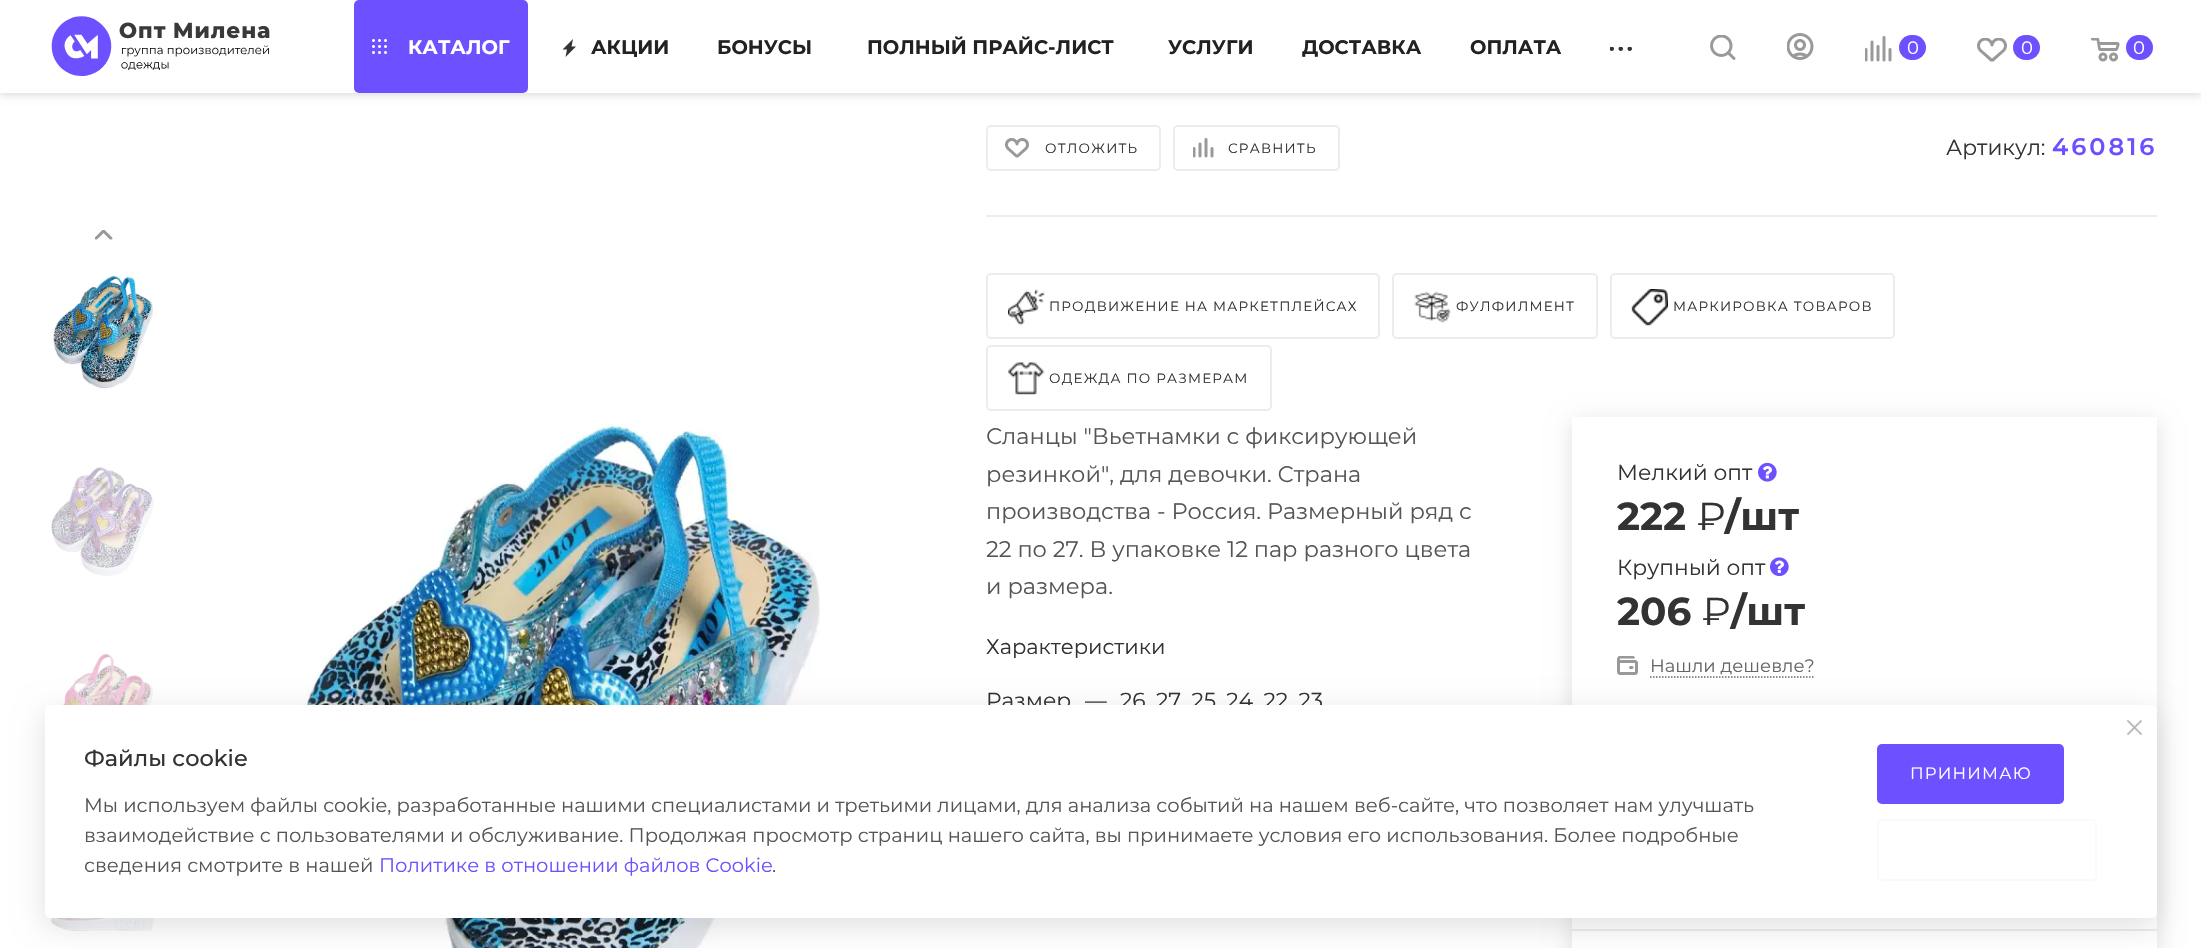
static SkFont makeFont(const char* family, int weight, float size, bool italic = false) {
  SkFontStyle style(weight, SkFontStyle::kNormal_Width,
    italic ? SkFontStyle::kItalic_Slant : SkFontStyle::kUpright_Slant);
  SkFont result(fontMgr->matchFamilyStyle(family, style), size);
  result.setSubpixel(true);
  return result;
}

static void text(SkCanvas* c, const char* s, float x, float y, const SkFont& font, SkColor color) {
  SkPaint ink(SkColor4f::FromColor(color));
  ink.setAntiAlias(true);
  c->drawString(s, x, y, font, ink);
}

static void spacedText(SkCanvas* c, const char* s, float x, float y, const SkFont& font, const SkPaint& ink, float letter, float word) {
  std::vector<SkGlyphID> glyphs(font.countText(s, strlen(s), SkTextEncoding::kUTF8));
  std::vector<float> xs(glyphs.size());
  font.textToGlyphs(s, strlen(s), SkTextEncoding::kUTF8, glyphs);
  font.getXPos(glyphs, xs, x);
  float extra = 0;
  for (size_t i = 0; i < glyphs.size(); i++) {
    xs[i] += extra;
    extra += letter + word * (glyphs[i] == font.unicharToGlyph(' '));
  }
  c->drawTextBlob(SkTextBlob::MakeFromPosHGlyphs(glyphs, xs, y, font), 0, 0, ink);
}

static void box(SkCanvas* c, float l, float t, float r, float b, SkColor color) {
  SkPaint ink(SkColor4f::FromColor(color));
  ink.setAntiAlias(true);
  c->drawRect(SkRect::MakeLTRB(l, t, r, b), ink);
}

static void roundBox(SkCanvas* c, float l, float t, float r, float b, float radius, SkColor color) {
  SkPaint ink(SkColor4f::FromColor(color));
  ink.setAntiAlias(true);
  c->drawRoundRect(SkRect::MakeLTRB(l, t, r, b), radius, radius, ink);
}

static void picture(SkCanvas* c, const char* path, float l, float t, float r, float b) {
  auto image = SkImages::DeferredFromEncodedData(SkData::MakeFromFileName(path));
  c->drawImageRect(image, SkRect::MakeLTRB(l, t, r, b), SkSamplingOptions());
}

void draw(SkCanvas* c) {
  SkPaint paint;
  paint.setAntiAlias(true);
  c->clear(0xffffffff);
  paint.setColor(0x24000000);
  paint.setMaskFilter(SkMaskFilter::MakeBlur(kNormal_SkBlurStyle, 4));
  c->drawRect(SkRect::MakeLTRB(0, 2, 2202, 95), paint);
  paint.setMaskFilter(nullptr);
  box(c, 0, 0, 2201, 93, 0xffffffff);
  picture(c, "img_01.png", 51, 16, 270, 76);
  roundBox(c, 354, 0, 528, 93, 5, 0xff6d50ff);
  picture(c, "img_02.png", 372, 39, 387, 54);
  SkFont face1 = makeFont("Montserrat", 700, 19.5f);
  text(c, "КАТАЛОГ", 408, 54, face1, 0xffffffff);
  paint.setColor(0xff333333);
  c->drawPath(SkPathBuilder(SkPathFillType::kEvenOdd).moveTo(573, 39).lineTo(562.5f, 49.5f).lineTo(567, 49.5f).lineTo(565.5f, 57).lineTo(576, 46.5f).lineTo(571.5f, 46.5f).close().detach(), paint);
  text(c, "АКЦИИ", 591, 54, face1, 0xff222222);
  text(c, "БОНУСЫ", 717, 54, face1, 0xff222222);
  text(c, "ПОЛНЫЙ ПРАЙС-ЛИСТ", 867, 54, face1, 0xff222222);
  text(c, "УСЛУГИ", 1168, 54, face1, 0xff222222);
  text(c, "ДОСТАВКА", 1302, 54, face1, 0xff222222);
  text(c, "ОПЛАТА", 1470, 54, face1, 0xff222222);
  picture(c, "img_03.png", 1610, 47, 1632, 51);
  picture(c, "img_04.png", 1710, 35, 1736, 60);
  picture(c, "img_05.png", 1787, 33, 1814, 60);
  picture(c, "img_06.png", 1865, 36, 1892, 62);
  roundBox(c, 1899, 35, 1926, 60, 12.5f, 0xff6d50ff);
  SkFont face2 = makeFont("Montserrat", 400, 18);
  text(c, "0", 1907, 54, face2, 0xffffffff);
  picture(c, "img_07.png", 1977, 38, 2007, 62);
  roundBox(c, 2013, 35, 2040, 60, 12.5f, 0xff6d50ff);
  text(c, "0", 2021, 54, face2, 0xffffffff);
  picture(c, "img_08.png", 2091, 38, 2120, 62);
  roundBox(c, 2126, 35, 2153, 60, 12.5f, 0xff6d50ff);
  text(c, "0", 2133, 54, face2, 0xffffffff);
  picture(c, "img_09.png", 95, 230, 113, 240);
  picture(c, "img_10.png", 53, 239, 153, 389);
  picture(c, "img_11.png", 51, 467, 154, 576);
  picture(c, "img_12.png", 50, 653, 153, 705);
  picture(c, "img_13.png", 50, 918, 154, 931);
  picture(c, "img_14.png", 297, 424, 820, 948);
  box(c, 986, 215, 2157, 217, 0xffececec);
  paint.setStyle(SkPaint::kStroke_Style);
  paint.setStrokeWidth(2);
  paint.setColor(0xffececec);
  c->drawRoundRect(SkRect::MakeLTRB(987, 126, 1160, 170), 4, 4, paint);
  picture(c, "img_15.png", 1005, 138, 1029, 158);
  SkFont face3 = makeFont("Montserrat", 400, 13.5f);
  paint.setStyle(SkPaint::kFill_Style);
  paint.setColor(0xff333333);
  spacedText(c, "ОТЛОЖИТЬ", 1045, 153, face3, paint, 1.2f, 0);
  paint.setStyle(SkPaint::kStroke_Style);
  paint.setColor(0xffececec);
  c->drawRoundRect(SkRect::MakeLTRB(1174, 126, 1339, 170), 4, 4, paint);
  picture(c, "img_16.png", 1193, 138, 1214, 158);
  paint.setStyle(SkPaint::kFill_Style);
  paint.setColor(0xff333333);
  spacedText(c, "СРАВНИТЬ", 1228, 153, face3, paint, 1.2f, 0);
  SkFont face4 = makeFont("Montserrat", 400, 21.75f);
  text(c, "Артикул:", 1946, 155, face4, 0xff333333);
  SkFont face5 = makeFont("Montserrat", 600, 24);
  paint.setColor(0xff6d50ff);
  spacedText(c, "460816", 2052, 155, face5, paint, 3, 0);
  paint.setStyle(SkPaint::kStroke_Style);
  paint.setColor(0xffececec);
  c->drawRoundRect(SkRect::MakeLTRB(987, 274, 1379, 338), 4, 4, paint);
  picture(c, "img_17.png", 1008, 289, 1045, 326);
  paint.setStyle(SkPaint::kFill_Style);
  paint.setColor(0xff333333);
  spacedText(c, "ПРОДВИЖЕНИЕ НА МАРКЕТПЛЕЙСАХ", 1049, 311, face3, paint, 1.2f, 0);
  paint.setStyle(SkPaint::kStroke_Style);
  paint.setColor(0xffececec);
  c->drawRoundRect(SkRect::MakeLTRB(1393, 274, 1597, 338), 4, 4, paint);
  picture(c, "img_18.png", 1414, 291, 1451, 323);
  paint.setStyle(SkPaint::kFill_Style);
  paint.setColor(0xff333333);
  spacedText(c, "ФУЛФИЛМЕНТ", 1456, 311, face3, paint, 1.2f, 0);
  paint.setStyle(SkPaint::kStroke_Style);
  paint.setColor(0xffececec);
  c->drawRoundRect(SkRect::MakeLTRB(1611, 274, 1894, 338), 4, 4, paint);
  picture(c, "img_19.png", 1631, 289, 1668, 326);
  paint.setStyle(SkPaint::kFill_Style);
  paint.setColor(0xff333333);
  spacedText(c, "МАРКИРОВКА ТОВАРОВ", 1673, 311, face3, paint, 1.2f, 0);
  paint.setStyle(SkPaint::kStroke_Style);
  paint.setColor(0xffececec);
  c->drawRoundRect(SkRect::MakeLTRB(987, 346, 1271, 410), 4, 4, paint);
  picture(c, "img_20.png", 1008, 362, 1045, 395);
  paint.setStyle(SkPaint::kFill_Style);
  paint.setColor(0xff333333);
  spacedText(c, "ОДЕЖДА ПО РАЗМЕРАМ", 1049, 383, face3, paint, 1.2f, 0);
  SkFont face6 = makeFont("Montserrat", 400, 22.5f);
  text(c, "Сланцы \"Вьетнамки с фиксирующей", 986, 444, face6, 0xff555555);
  text(c, "резинкой\", для девочки. Страна", 986, 482, face6, 0xff555555);
  text(c, "производства - Россия. Размерный ряд с", 986, 519, face6, 0xff555555);
  text(c, "22 по 27. В упаковке 12 пар разного цвета", 986, 557, face6, 0xff555555);
  text(c, "и размера.", 986, 594, face6, 0xff555555);
  SkFont face7 = makeFont("Montserrat", 400, 21);
  text(c, "Характеристики", 986, 654, face7, 0xff333333);
  text(c, "Размер", 986, 708, face4, 0xff333333);
  text(c, "—", 1085, 708, face4, 0xff333333);
  text(c, "26, 27, 25, 24, 22, 23", 1120, 708, face4, 0xff333333);
  c->save();
  c->clipPath(SkPathBuilder(SkPathFillType::kEvenOdd).moveTo(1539, 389).lineTo(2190, 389).lineTo(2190, 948).lineTo(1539, 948).close().moveTo(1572, 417).lineTo(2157, 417).lineTo(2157, 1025).lineTo(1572, 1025).close().detach(), true);
  paint.setColor(0x1f000000);
  paint.setMaskFilter(SkMaskFilter::MakeBlur(kNormal_SkBlurStyle, 10.5f));
  c->drawRect(SkRect::MakeLTRB(1572, 422, 2157, 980), paint);
  paint.setMaskFilter(nullptr);
  c->restore();
  text(c, "Мелкий опт", 1617, 480, face4, 0xff333333);
  picture(c, "img_21.png", 1758, 462, 1777, 482);
  SkFont face8 = makeFont("Montserrat", 700, 39);
  text(c, "222", 1617, 530, face8, 0xff333333);
  SkFont face9 = makeFont("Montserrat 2", 400, 39);
  text(c, "₽", 1697, 530, face9, 0xff333333);
  text(c, "/шт", 1725, 530, face8, 0xff333333);
  text(c, "Крупный опт", 1617, 575, face4, 0xff333333);
  picture(c, "img_22.png", 1770, 557, 1789, 577);
  text(c, "206", 1617, 625, face8, 0xff333333);
  text(c, "₽", 1702, 625, face9, 0xff333333);
  text(c, "/шт", 1731, 625, face8, 0xff333333);
  picture(c, "img_23.png", 1617, 656, 1638, 675);
  text(c, "Нашли дешевле?", 1650, 672, face2, 0xff666666);
  paint.setStyle(SkPaint::kStroke_Style);
  paint.setStrokeWidth(1.5f);
  paint.setColor(0xff666666);
  paint.setPathEffect(SkDashPathEffect::Make({{1.5f, 1.5f}}, 0));
  c->drawPath(SkPathBuilder().moveTo(1650, 677).lineTo(1815, 677).detach(), paint);
  paint.setPathEffect(nullptr);
  box(c, 1572, 929, 2157, 931, 0xffececec);
  paint.setStyle(SkPaint::kFill_Style);
  paint.setColor(0x1f000000);
  paint.setMaskFilter(SkMaskFilter::MakeBlur(kNormal_SkBlurStyle, 15));
  c->drawRoundRect(SkRect::MakeLTRB(45, 713, 2157, 926), 5, 5, paint);
  paint.setMaskFilter(nullptr);
  roundBox(c, 45, 705, 2157, 918, 5, 0xffffffff);
  picture(c, "img_24.png", 2127, 720, 2142, 735);
  SkFont face10 = makeFont("Montserrat", 500, 22.5f);
  text(c, "Файлы cookie", 84, 766, face10, 0xff333333);
  SkFont face11 = makeFont("Montserrat", 400, 19.5f);
  text(c, "Мы используем файлы cookie, разработанные нашими специалистами и третьими лицами, для анализа событий на нашем веб-сайте, что позволяет нам улучшать", 84, 812, face11, 0xff555555);
  text(c, "взаимодействие с пользователями и обслуживание. Продолжая просмотр страниц нашего сайта, вы принимаете условия его использования. Более подробные", 84, 842, face11, 0xff555555);
  text(c, "сведения смотрите в нашей", 84, 872, face11, 0xff555555);
  text(c, "Политике в отношении файлов Cookie", 379, 872, face11, 0xff6d50ff);
  text(c, ".", 772, 872, face11, 0xff555555);
  paint.setColor(0xff6d50ff);
  c->drawRoundRect(SkRect::MakeLTRB(1878, 745, 2063, 803), 4, 4, paint);
  paint.setStyle(SkPaint::kStroke_Style);
  paint.setStrokeWidth(2);
  c->drawRoundRect(SkRect::MakeLTRB(1878, 745, 2063, 803), 4, 4, paint);
  SkFont face12 = makeFont("Montserrat", 400, 16.5f);
  paint.setStyle(SkPaint::kFill_Style);
  paint.setColor(0xffffffff);
  spacedText(c, "ПРИНИМАЮ", 1910, 779, face12, paint, 1.2f, 0);
  paint.setStyle(SkPaint::kStroke_Style);
  paint.setColor(0xfffafafa);
  c->drawRoundRect(SkRect::MakeLTRB(1878, 820, 2096, 880), 4, 4, paint);
}
